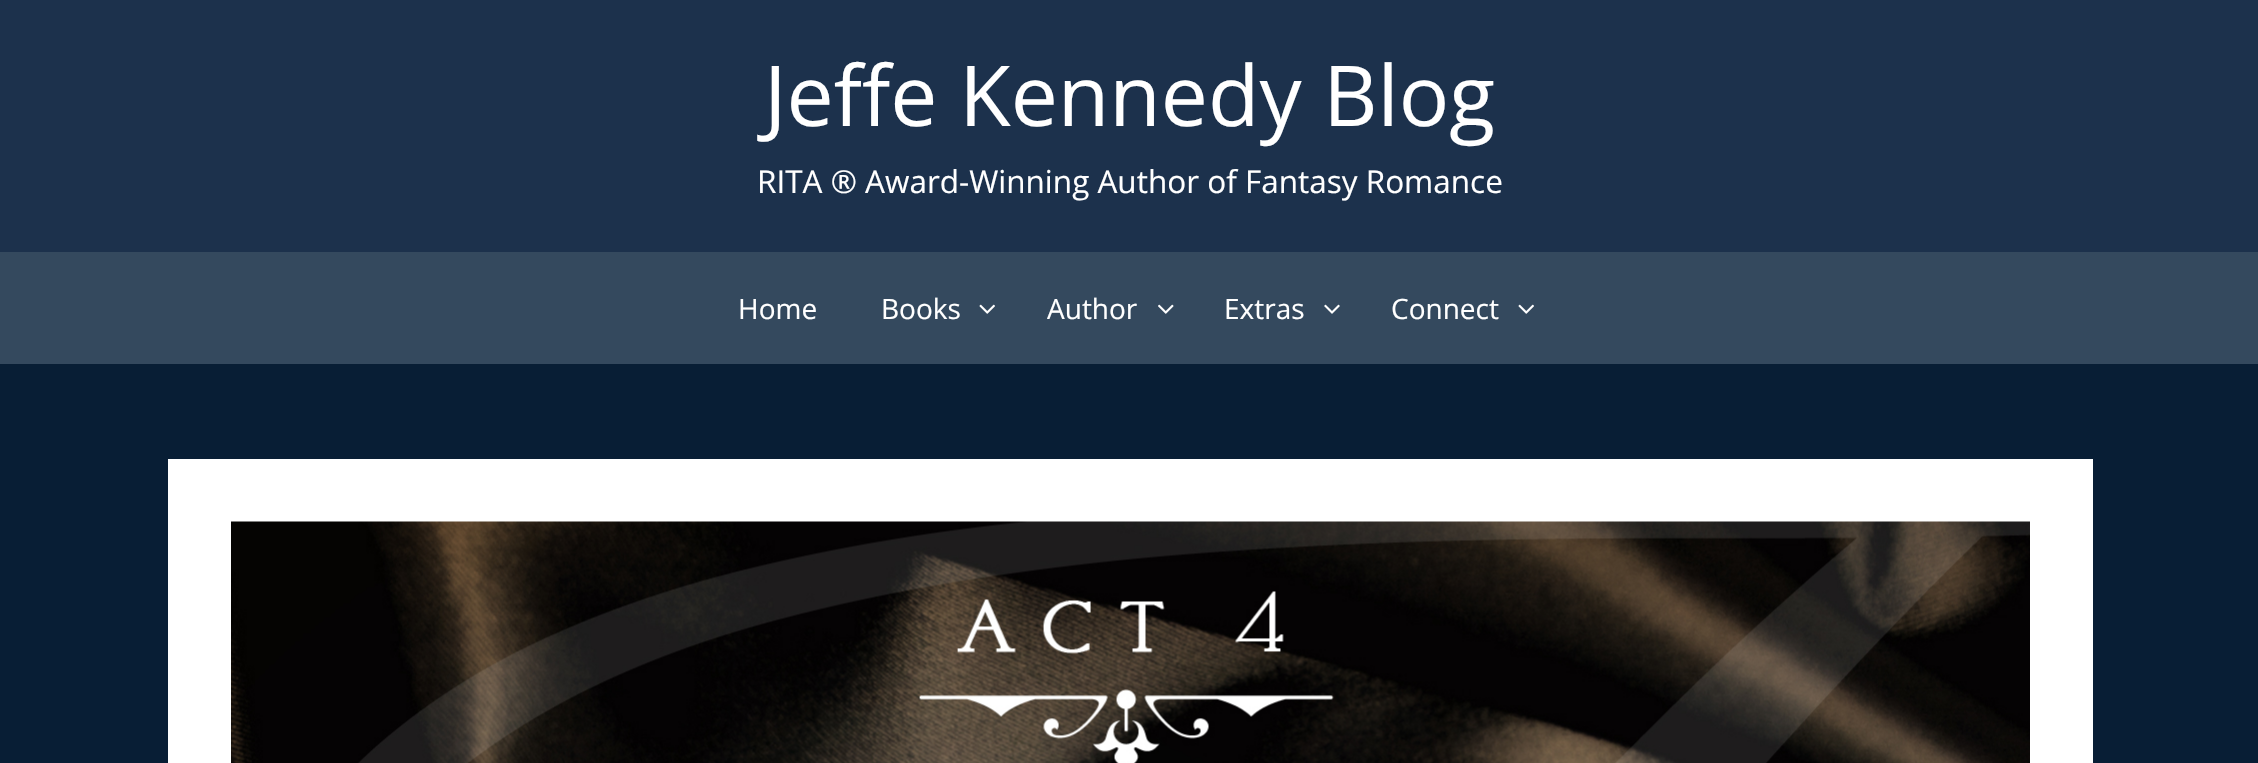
static SkFont makeFont(const char* family, int weight, float size, bool italic = false) {
  SkFontStyle style(weight, SkFontStyle::kNormal_Width,
    italic ? SkFontStyle::kItalic_Slant : SkFontStyle::kUpright_Slant);
  SkFont result(fontMgr->matchFamilyStyle(family, style), size);
  result.setSubpixel(true);
  return result;
}

static void text(SkCanvas* c, const char* s, float x, float y, const SkFont& font, SkColor color) {
  SkPaint ink(SkColor4f::FromColor(color));
  ink.setAntiAlias(true);
  c->drawString(s, x, y, font, ink);
}

static void box(SkCanvas* c, float l, float t, float r, float b, SkColor color) {
  SkPaint ink(SkColor4f::FromColor(color));
  ink.setAntiAlias(true);
  c->drawRect(SkRect::MakeLTRB(l, t, r, b), ink);
}

static void picture(SkCanvas* c, const char* path, float l, float t, float r, float b) {
  auto image = SkImages::DeferredFromEncodedData(SkData::MakeFromFileName(path));
  c->drawImageRect(image, SkRect::MakeLTRB(l, t, r, b), SkSamplingOptions());
}

void draw(SkCanvas* c) {
  SkPaint paint;
  paint.setAntiAlias(true);
  c->clear(0xff081e35);
  box(c, 0, 0, 2258, 252, 0xff1c314c);
  SkFont face1 = makeFont("Open Sans", 400, 84);
  text(c, "Jeffe Kennedy Blog", 764, 126, face1, 0xffffffff);
  SkFont face2 = makeFont("Open Sans", 400, 31.5f);
  text(c, "RITA ® Award-Winning Author of Fantasy Romance", 757, 193, face2, 0xffffffff);
  box(c, 0, 252, 2258, 364, 0xff34495e);
  SkFont face3 = makeFont("Open Sans", 400, 28);
  text(c, "Home", 738, 319, face3, 0xffffffff);
  text(c, "Books", 881, 319, face3, 0xffffffff);
  picture(c, "img_01.png", 979, 304, 995, 314);
  text(c, "Author", 1047, 319, face3, 0xffffffff);
  picture(c, "img_02.png", 1158, 304, 1174, 314);
  text(c, "Extras", 1224, 319, face3, 0xffffffff);
  picture(c, "img_03.png", 1324, 304, 1340, 314);
  text(c, "Connect", 1391, 319, face3, 0xffffffff);
  picture(c, "img_01.png", 1518, 304, 1534, 314);
  box(c, 168, 459, 2093, 763, 0xffffffff);
  picture(c, "img_04.png", 231, 521, 2030, 763);
}
